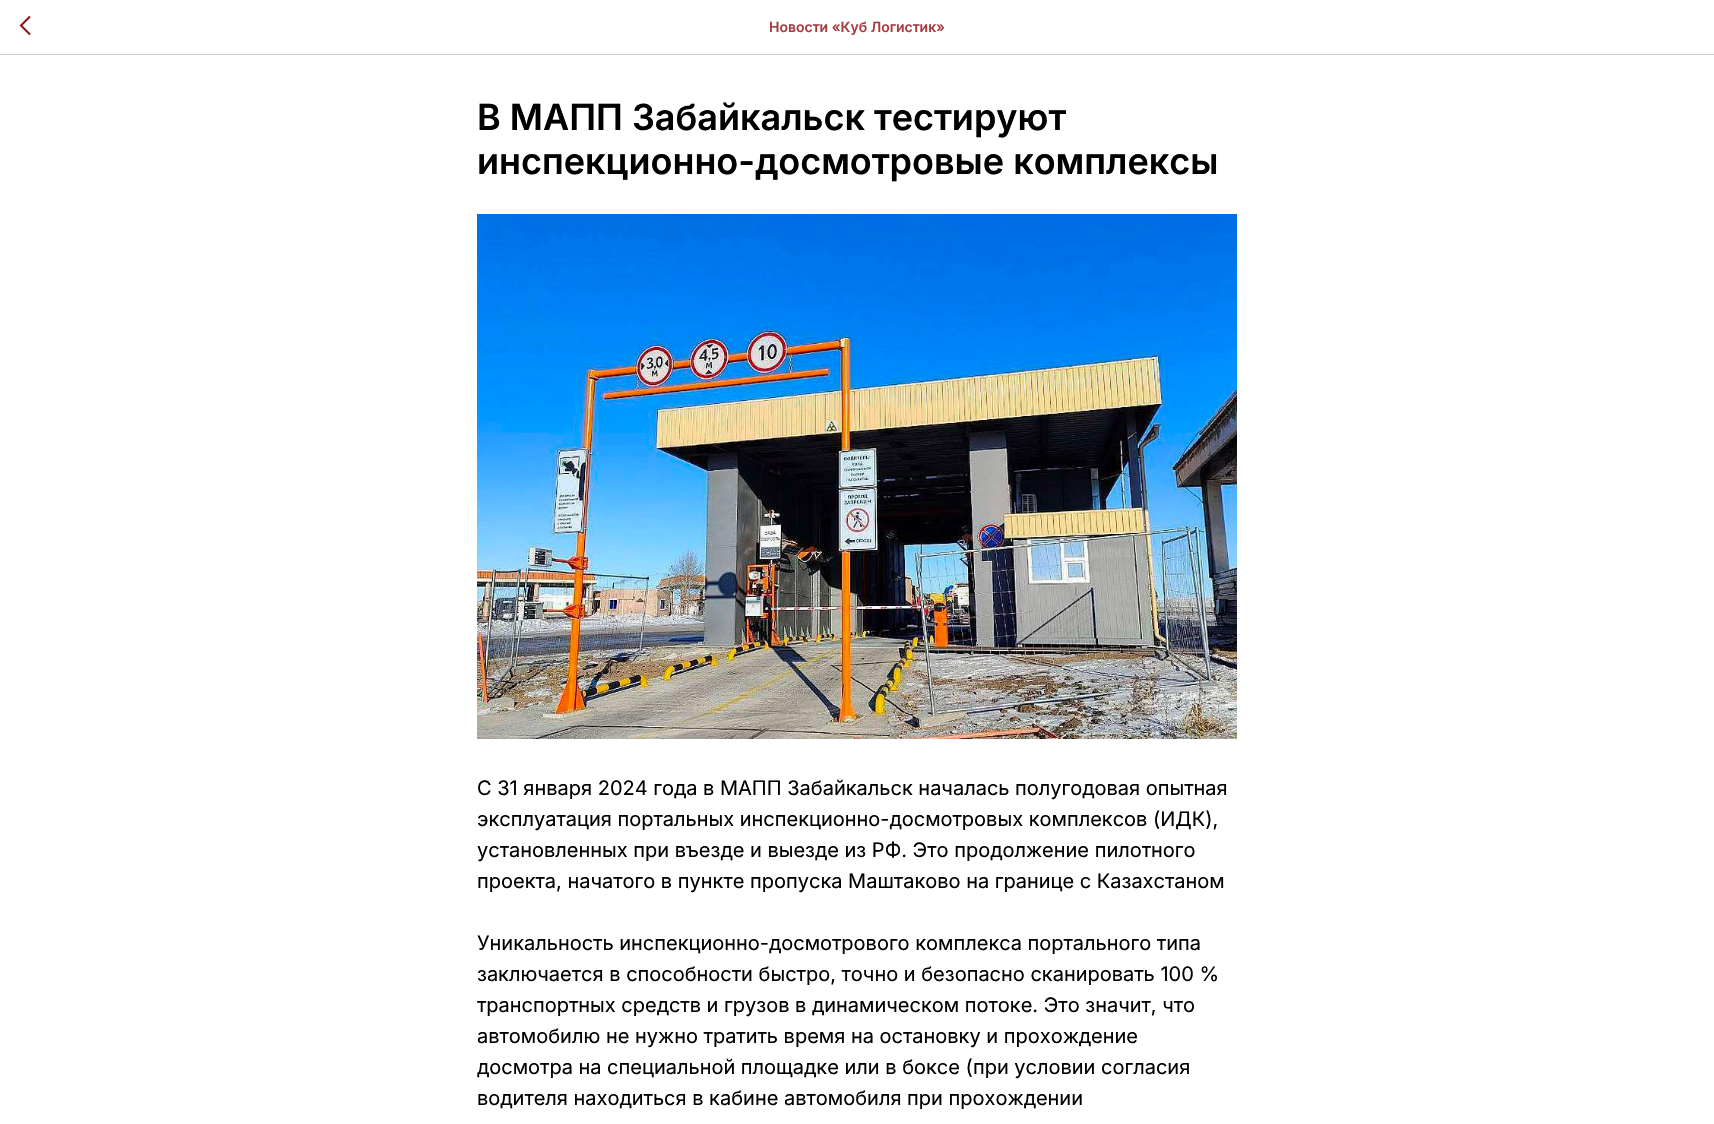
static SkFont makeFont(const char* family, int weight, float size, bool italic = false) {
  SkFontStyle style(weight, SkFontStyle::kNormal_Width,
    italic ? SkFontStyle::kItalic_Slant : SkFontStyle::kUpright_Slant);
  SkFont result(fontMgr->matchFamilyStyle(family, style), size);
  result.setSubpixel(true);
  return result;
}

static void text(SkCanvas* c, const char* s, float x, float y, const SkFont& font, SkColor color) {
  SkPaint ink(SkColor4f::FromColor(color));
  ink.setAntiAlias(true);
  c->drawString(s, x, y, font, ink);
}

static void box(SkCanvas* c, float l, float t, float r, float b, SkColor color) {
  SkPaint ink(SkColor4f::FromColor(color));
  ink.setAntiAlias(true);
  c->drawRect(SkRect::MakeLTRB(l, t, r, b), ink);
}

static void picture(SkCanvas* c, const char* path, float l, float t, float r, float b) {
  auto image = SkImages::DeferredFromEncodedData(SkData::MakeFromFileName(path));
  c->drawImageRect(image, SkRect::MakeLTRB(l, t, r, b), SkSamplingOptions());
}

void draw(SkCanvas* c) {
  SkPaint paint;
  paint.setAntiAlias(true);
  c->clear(0xffffffff);
  box(c, 0, 54, 1714, 55, 0xffcccccc);
  paint.setStyle(SkPaint::kStroke_Style);
  paint.setStrokeWidth(2);
  paint.setColor(0xff8f0c12);
  c->drawPath(SkPathBuilder().moveTo(30, 34.5f).lineTo(21, 25.5f).lineTo(30, 16.5f).detach(), paint);
  SkFont face1 = makeFont("Inter", 600, 14);
  text(c, "Новости «Куб Логистик»", 769, 32, face1, 0xffa53d41);
  SkFont face2 = makeFont("Inter", 600, 36);
  text(c, "В МАПП Забайкальск тестируют", 477, 130, face2, 0xff000000);
  text(c, "инспекционно-досмотровые комплексы", 477, 174, face2, 0xff000000);
  picture(c, "img_01.png", 477, 214, 1237, 739);
  SkFont face3 = makeFont("Inter", 400, 20);
  text(c, "C 31 января 2024 года в МАПП Забайкальск началась полугодовая опытная", 477, 795, face3, 0xff000000);
  text(c, "эксплуатация портальных инспекционно-досмотровых комплексов (ИДК),", 477, 826, face3, 0xff000000);
  text(c, "установленных при въезде и выезде из РФ. Это продолжение пилотного", 477, 857, face3, 0xff000000);
  text(c, "проекта, начатого в пункте пропуска Маштаково на границе с Казахстаном", 477, 888, face3, 0xff000000);
  text(c, "Уникальность инспекционно-досмотрового комплекса портального типа", 477, 950, face3, 0xff000000);
  text(c, "заключается в способности быстро, точно и безопасно сканировать 100 %", 477, 981, face3, 0xff000000);
  text(c, "транспортных средств и грузов в динамическом потоке. Это значит, что", 477, 1012, face3, 0xff000000);
  text(c, "автомобилю не нужно тратить время на остановку и прохождение", 477, 1043, face3, 0xff000000);
  text(c, "досмотра на специальной площадке или в боксе (при условии согласия", 477, 1074, face3, 0xff000000);
  text(c, "водителя находиться в кабине автомобиля при прохождении", 477, 1105, face3, 0xff000000);
}
